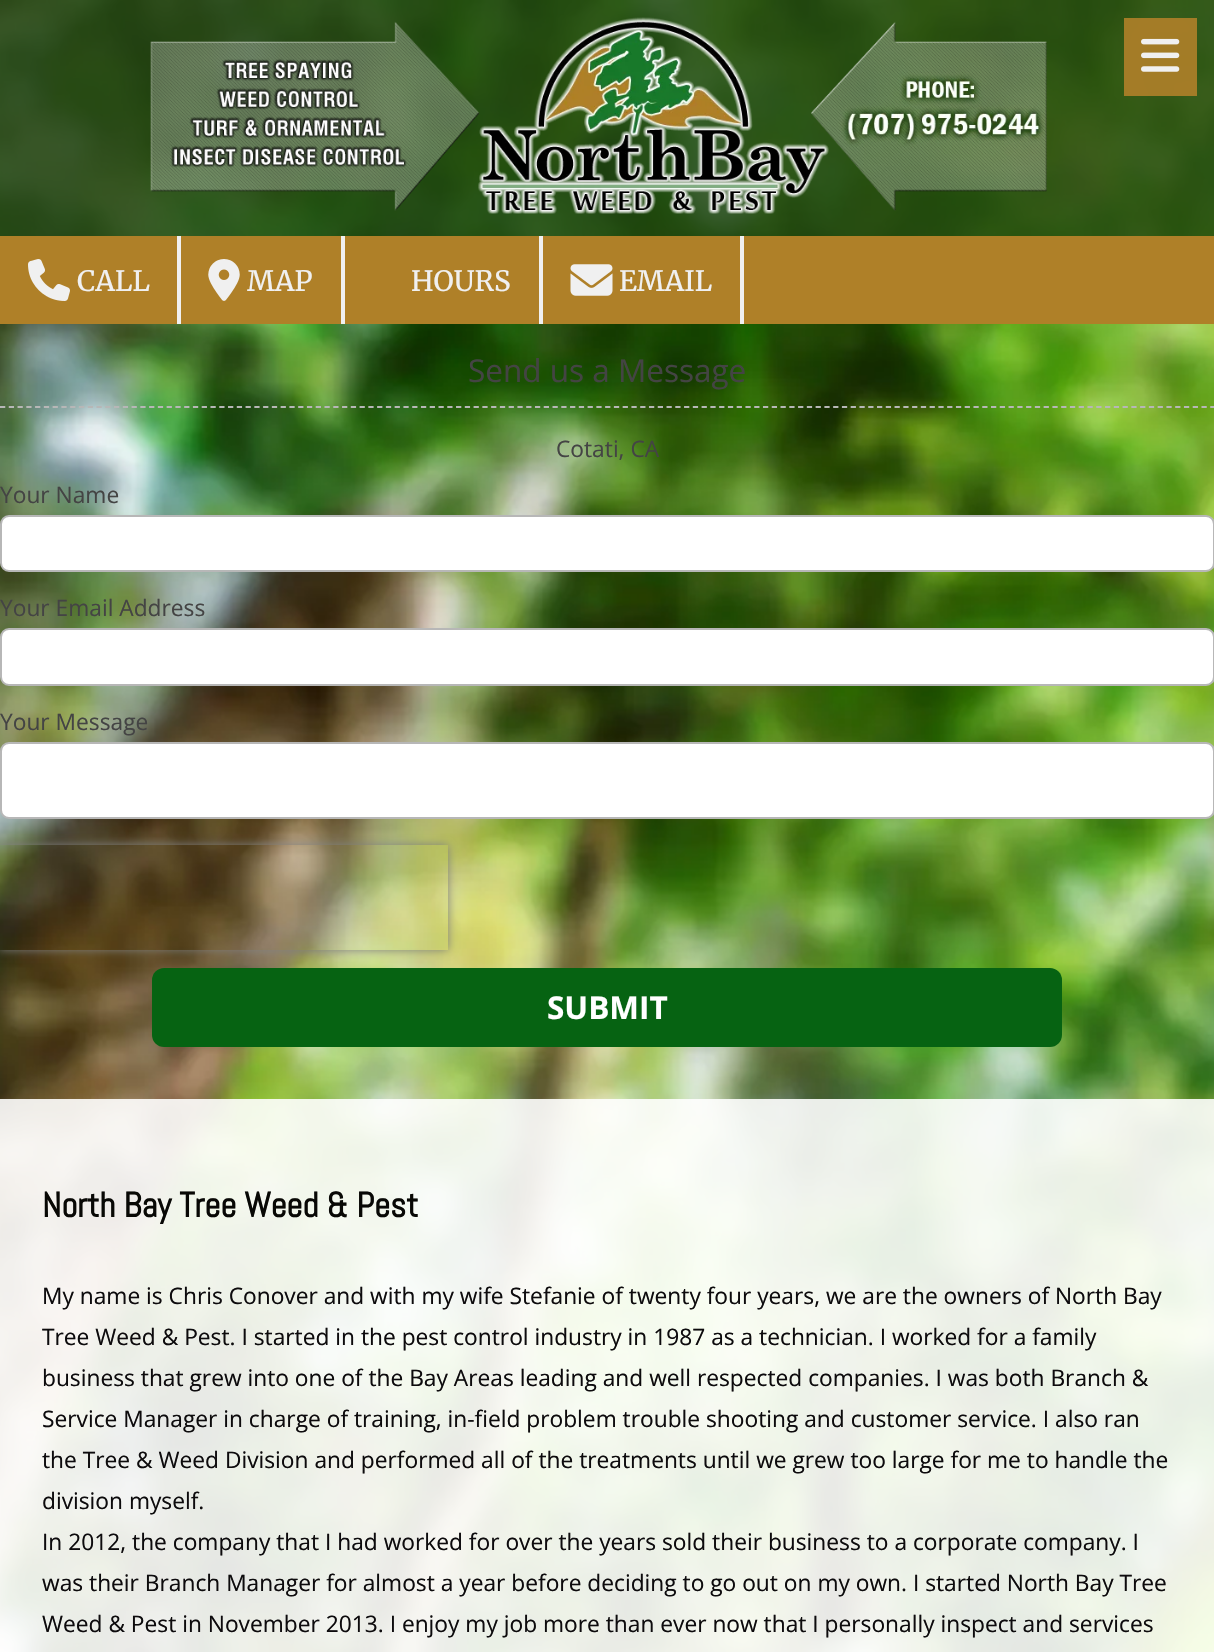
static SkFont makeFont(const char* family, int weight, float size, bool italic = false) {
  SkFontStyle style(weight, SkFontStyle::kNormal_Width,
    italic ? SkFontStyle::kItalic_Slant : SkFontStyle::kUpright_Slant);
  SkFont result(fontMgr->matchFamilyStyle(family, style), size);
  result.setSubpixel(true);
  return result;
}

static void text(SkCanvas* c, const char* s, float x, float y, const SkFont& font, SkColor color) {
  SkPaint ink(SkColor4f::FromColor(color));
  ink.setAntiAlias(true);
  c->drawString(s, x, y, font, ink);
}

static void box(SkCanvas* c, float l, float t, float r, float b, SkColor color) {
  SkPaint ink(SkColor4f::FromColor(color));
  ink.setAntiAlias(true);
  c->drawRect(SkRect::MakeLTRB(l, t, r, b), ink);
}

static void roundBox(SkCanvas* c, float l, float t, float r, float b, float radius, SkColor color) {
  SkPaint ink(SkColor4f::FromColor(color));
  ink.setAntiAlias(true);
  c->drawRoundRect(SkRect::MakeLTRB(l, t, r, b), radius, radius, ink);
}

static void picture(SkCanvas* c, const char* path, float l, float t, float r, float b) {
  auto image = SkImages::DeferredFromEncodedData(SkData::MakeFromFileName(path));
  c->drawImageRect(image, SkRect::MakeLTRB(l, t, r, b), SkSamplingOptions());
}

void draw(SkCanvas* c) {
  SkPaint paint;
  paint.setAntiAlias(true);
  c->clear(0xffffffff);
  picture(c, "img_01.png", 0, 0, 1214, 1652);
  box(c, 0, 0, 1214, 236, 0xd11f420d);
  picture(c, "img_02.png", 150, 17, 1047, 214);
  box(c, 1124, 18, 1197, 96, 0xe6af8028);
  picture(c, "img_03.png", 1141, 38, 1180, 72);
  box(c, 0, 236, 1214, 324, 0xffaf8028);
  box(c, 177, 236, 181, 324, 0xfff0f0f0);
  picture(c, "img_04.png", 28, 259, 70, 301);
  SkFont face1 = makeFont("Merriweather", 400, 28);
  text(c, "CALL", 77, 291, face1, 0xfff0f0f0);
  box(c, 341, 236, 345, 324, 0xfff0f0f0);
  picture(c, "img_05.png", 208, 259, 240, 301);
  text(c, "MAP", 247, 291, face1, 0xfff0f0f0);
  box(c, 539, 236, 543, 324, 0xfff0f0f0);
  text(c, "HOURS", 411, 291, face1, 0xfff0f0f0);
  box(c, 740, 236, 744, 324, 0xfff0f0f0);
  picture(c, "img_06.png", 570, 264, 613, 296);
  text(c, "EMAIL", 619, 291, face1, 0xfff0f0f0);
  SkFont face2 = makeFont("Open Sans", 400, 31.5f);
  text(c, "Send us a Message", 468, 382, face2, 0xff444444);
  paint.setStyle(SkPaint::kStroke_Style);
  paint.setStrokeWidth(1.8f);
  paint.setColor(0xffb7b7b7);
  paint.setPathEffect(SkDashPathEffect::Make({{5.25f, 3.52f}}, 0));
  c->drawPath(SkPathBuilder().moveTo(0, 407).lineTo(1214.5f, 407).detach(), paint);
  paint.setPathEffect(nullptr);
  SkFont face3 = makeFont("Open Sans", 400, 22.75f);
  text(c, "Cotati, CA", 556, 457, face3, 0xff444444);
  text(c, "Your Name", 0, 503, face3, 0xff444444);
  paint.setStyle(SkPaint::kFill_Style);
  paint.setColor(0xffffffff);
  c->drawRoundRect(SkRect::MakeLTRB(1, 516, 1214, 571), 8, 8, paint);
  paint.setStyle(SkPaint::kStroke_Style);
  paint.setStrokeWidth(2);
  paint.setColor(0xffb7b7b7);
  c->drawRoundRect(SkRect::MakeLTRB(1, 516, 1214, 571), 8, 8, paint);
  text(c, "Your Email Address", 0, 616, face3, 0xff444444);
  paint.setStyle(SkPaint::kFill_Style);
  paint.setColor(0xffffffff);
  c->drawRoundRect(SkRect::MakeLTRB(1, 629, 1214, 685), 8, 8, paint);
  paint.setStyle(SkPaint::kStroke_Style);
  paint.setColor(0xffb7b7b7);
  c->drawRoundRect(SkRect::MakeLTRB(1, 629, 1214, 685), 8, 8, paint);
  text(c, "Your Message", 0, 730, face3, 0xff444444);
  paint.setStyle(SkPaint::kFill_Style);
  paint.setColor(0xffffffff);
  c->drawRoundRect(SkRect::MakeLTRB(1, 743, 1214, 818), 8, 8, paint);
  paint.setStyle(SkPaint::kStroke_Style);
  paint.setColor(0xffb7b7b7);
  c->drawRoundRect(SkRect::MakeLTRB(1, 743, 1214, 818), 8, 8, paint);
  c->save();
  c->clipPath(SkPathBuilder(SkPathFillType::kEvenOdd).moveTo(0, 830).lineTo(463, 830).lineTo(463, 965).lineTo(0, 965).close().moveTo(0, 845).lineTo(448, 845).lineTo(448, 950).lineTo(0, 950).close().detach(), true);
  paint.setStyle(SkPaint::kFill_Style);
  paint.setColor(0xff808080);
  paint.setMaskFilter(SkMaskFilter::MakeBlur(kNormal_SkBlurStyle, 4.5f));
  c->drawRect(SkRect::MakeLTRB(0, 845, 448, 950), paint);
  paint.setMaskFilter(nullptr);
  c->restore();
  roundBox(c, 152, 968, 1062, 1047, 12, 0xff066312);
  SkFont face4 = makeFont("Open Sans", 700, 31.5f);
  text(c, "SUBMIT", 547, 1019, face4, 0xffffffff);
  box(c, 0, 1099, 1214, 1652, 0xe3ffffff);
  SkFont face5 = makeFont("Abel", 700, 35);
  text(c, "North Bay Tree Weed & Pest", 42, 1217, face5, 0xff080805);
  text(c, "My name is Chris Conover and with my wife Stefanie of twenty four years, we are the owners of North Bay", 42, 1304, face3, 0xff0d0b0d);
  text(c, "Tree Weed & Pest. I started in the pest control industry in 1987 as a technician. I worked for a family", 42, 1345, face3, 0xff0d0b0d);
  text(c, "business that grew into one of the Bay Areas leading and well respected companies. I was both Branch &", 42, 1386, face3, 0xff0d0b0d);
  text(c, "Service Manager in charge of training, in-field problem trouble shooting and customer service. I also ran", 42, 1427, face3, 0xff0d0b0d);
  text(c, "the Tree & Weed Division and performed all of the treatments until we grew too large for me to handle the", 42, 1468, face3, 0xff0d0b0d);
  text(c, "division myself.", 42, 1509, face3, 0xff0d0b0d);
  text(c, "In 2012, the company that I had worked for over the years sold their business to a corporate company. I", 42, 1550, face3, 0xff0d0b0d);
  text(c, "was their Branch Manager for almost a year before deciding to go out on my own. I started North Bay Tree", 42, 1591, face3, 0xff0d0b0d);
  text(c, "Weed & Pest in November 2013. I enjoy my job more than ever now that I personally inspect and services", 42, 1632, face3, 0xff0d0b0d);
}
